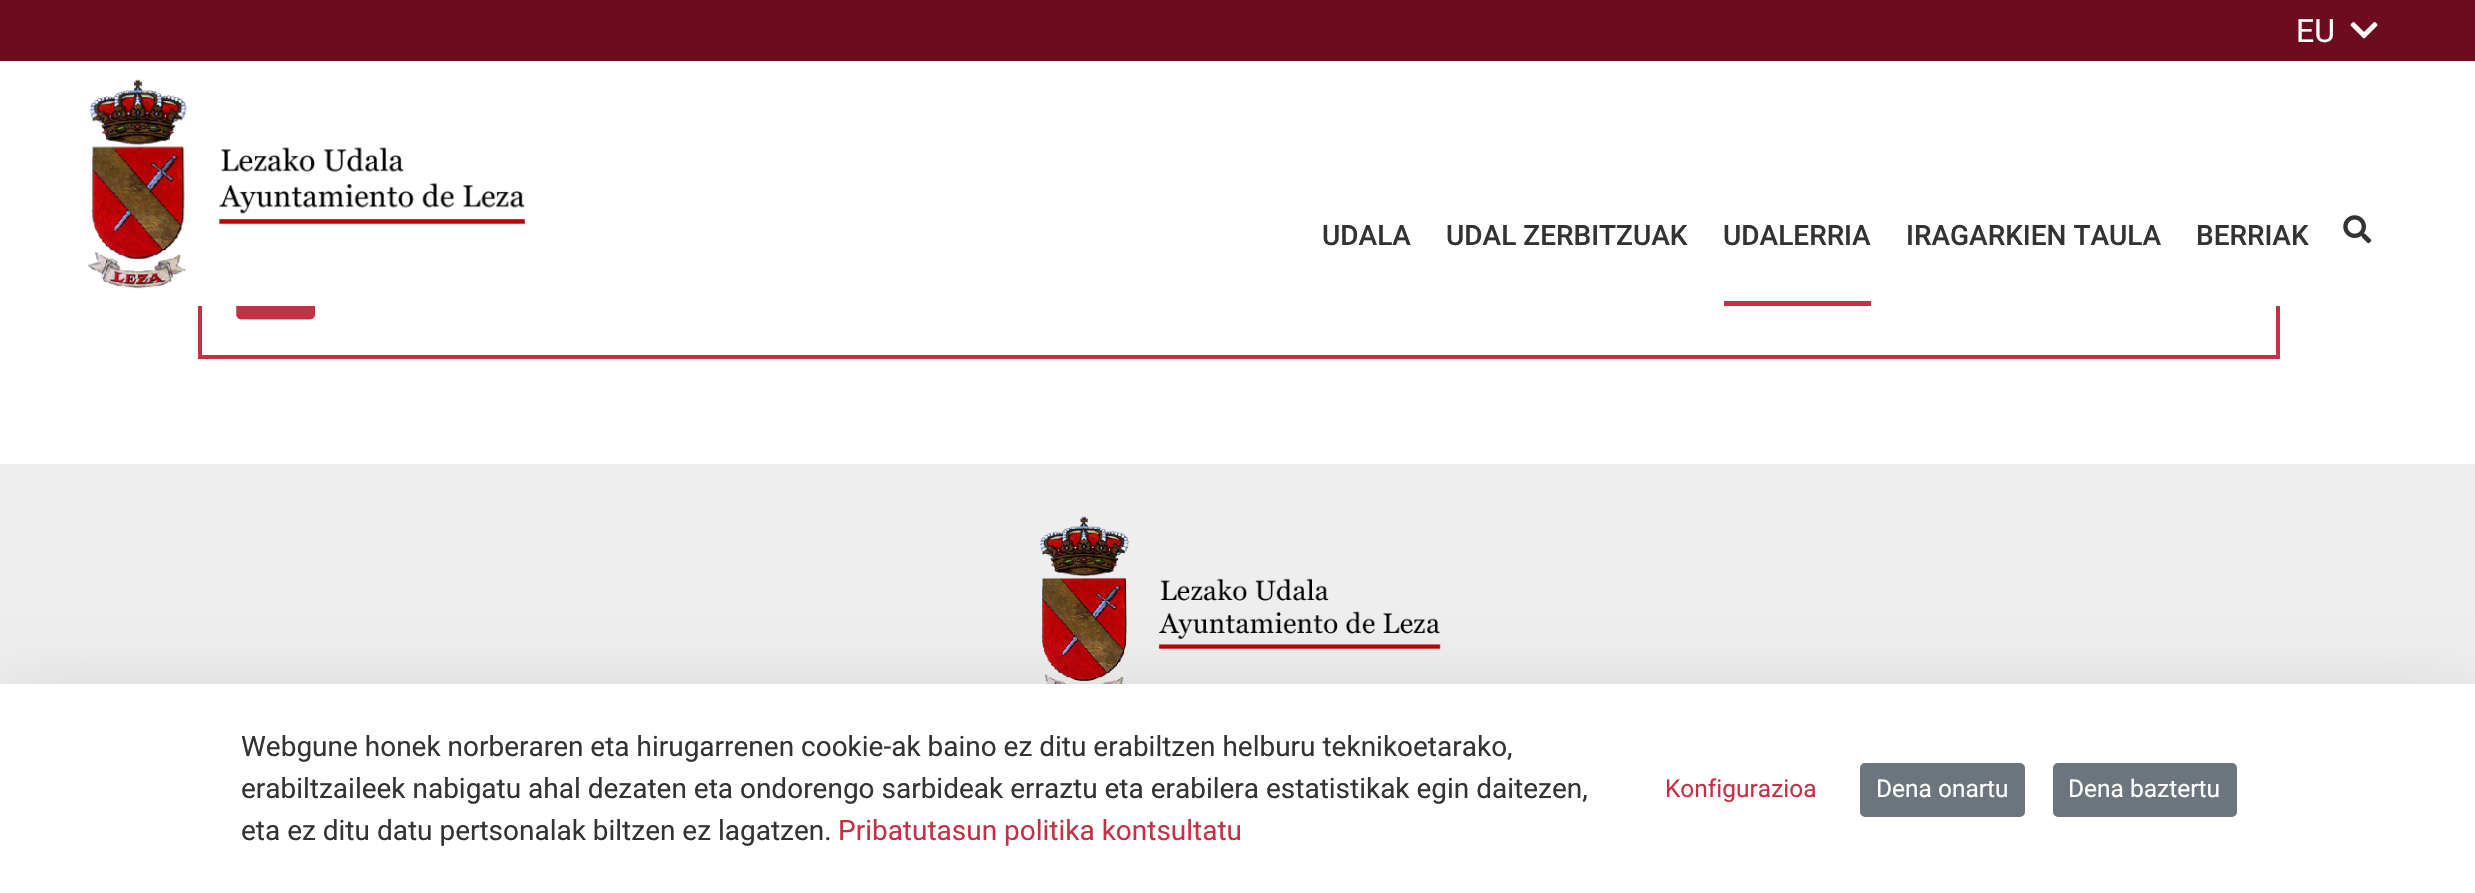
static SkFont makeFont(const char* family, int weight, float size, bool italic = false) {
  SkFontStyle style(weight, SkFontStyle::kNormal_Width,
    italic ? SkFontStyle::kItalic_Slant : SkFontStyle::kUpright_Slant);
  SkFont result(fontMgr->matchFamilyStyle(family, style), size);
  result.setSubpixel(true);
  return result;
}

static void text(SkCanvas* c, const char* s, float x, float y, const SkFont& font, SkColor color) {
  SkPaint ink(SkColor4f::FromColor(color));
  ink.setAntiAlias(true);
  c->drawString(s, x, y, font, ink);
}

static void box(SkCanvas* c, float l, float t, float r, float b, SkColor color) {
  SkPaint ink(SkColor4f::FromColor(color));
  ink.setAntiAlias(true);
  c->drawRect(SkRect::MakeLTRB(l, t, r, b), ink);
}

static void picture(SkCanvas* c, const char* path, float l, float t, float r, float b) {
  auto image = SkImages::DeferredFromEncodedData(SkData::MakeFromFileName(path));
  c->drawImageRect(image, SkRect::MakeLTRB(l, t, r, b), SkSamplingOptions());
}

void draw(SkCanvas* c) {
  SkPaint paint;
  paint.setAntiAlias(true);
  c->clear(0xffffffff);
  box(c, 0, 0, 2475, 61, 0xff6d0c1f);
  SkFont face1 = makeFont("Roboto", 400, 32);
  text(c, "EU", 2296, 42, face1, 0xffffffff);
  picture(c, "img_01.png", 2350, 22, 2378, 39);
  paint.setStyle(SkPaint::kStroke_Style);
  paint.setStrokeWidth(4);
  paint.setColor(0xffc33146);
  c->drawRect(SkRect::MakeLTRB(200, 179, 2278, 357), paint);
  box(c, 198, 177, 2280, 306, 0xffffffff);
  picture(c, "img_02.png", 88, 79, 525, 289);
  SkFont face2 = makeFont("Roboto", 500, 28);
  text(c, "UDALA", 1322, 245, face2, 0xff333333);
  text(c, "UDAL ZERBITZUAK", 1446, 245, face2, 0xff333333);
  box(c, 1724, 301, 1871, 306, 0xffc33146);
  text(c, "UDALERRIA", 1723, 245, face2, 0xff333333);
  text(c, "IRAGARKIEN TAULA", 1906, 245, face2, 0xff333333);
  text(c, "BERRIAK", 2196, 245, face2, 0xff333333);
  picture(c, "img_03.png", 2343, 215, 2372, 244);
  picture(c, "img_04.png", 236, 306, 315, 320);
  box(c, 0, 464, 2475, 684, 0xffeeeeee);
  picture(c, "img_05.png", 1040, 516, 1441, 684);
  paint.setStyle(SkPaint::kFill_Style);
  paint.setColor(0x2e000000);
  paint.setMaskFilter(SkMaskFilter::MakeBlur(kNormal_SkBlurStyle, 42));
  c->drawRect(SkRect::MakeLTRB(0, 712, 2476, 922), paint);
  paint.setMaskFilter(nullptr);
  box(c, 0, 684, 2475, 893, 0xffffffff);
  SkFont face3 = makeFont("Roboto", 400, 28);
  text(c, "Webgune honek norberaren eta hirugarrenen cookie-ak baino ez ditu erabiltzen helburu teknikoetarako,", 241, 756, face3, 0xff333333);
  text(c, "erabiltzaileek nabigatu ahal dezaten eta ondorengo sarbideak erraztu eta erabilera estatistikak egin daitezen,", 241, 798, face3, 0xff333333);
  text(c, "eta ez ditu datu pertsonalak biltzen ez lagatzen.", 241, 840, face3, 0xff333333);
  text(c, "Pribatutasun politika kontsultatu", 838, 840, face3, 0xffc33146);
  SkFont face4 = makeFont("Roboto", 400, 24.5f);
  text(c, "Konfigurazioa", 1665, 797, face4, 0xffc33146);
  paint.setColor(0xff6c757d);
  c->drawRoundRect(SkRect::MakeLTRB(1861, 764, 2024, 816), 4, 4, paint);
  paint.setStyle(SkPaint::kStroke_Style);
  paint.setStrokeWidth(2);
  c->drawRoundRect(SkRect::MakeLTRB(1861, 764, 2024, 816), 4, 4, paint);
  text(c, "Dena onartu", 1876, 797, face4, 0xffffffff);
  paint.setStyle(SkPaint::kFill_Style);
  c->drawRoundRect(SkRect::MakeLTRB(2054, 764, 2236, 816), 4, 4, paint);
  paint.setStyle(SkPaint::kStroke_Style);
  c->drawRoundRect(SkRect::MakeLTRB(2054, 764, 2236, 816), 4, 4, paint);
  text(c, "Dena baztertu", 2068, 797, face4, 0xffffffff);
}
